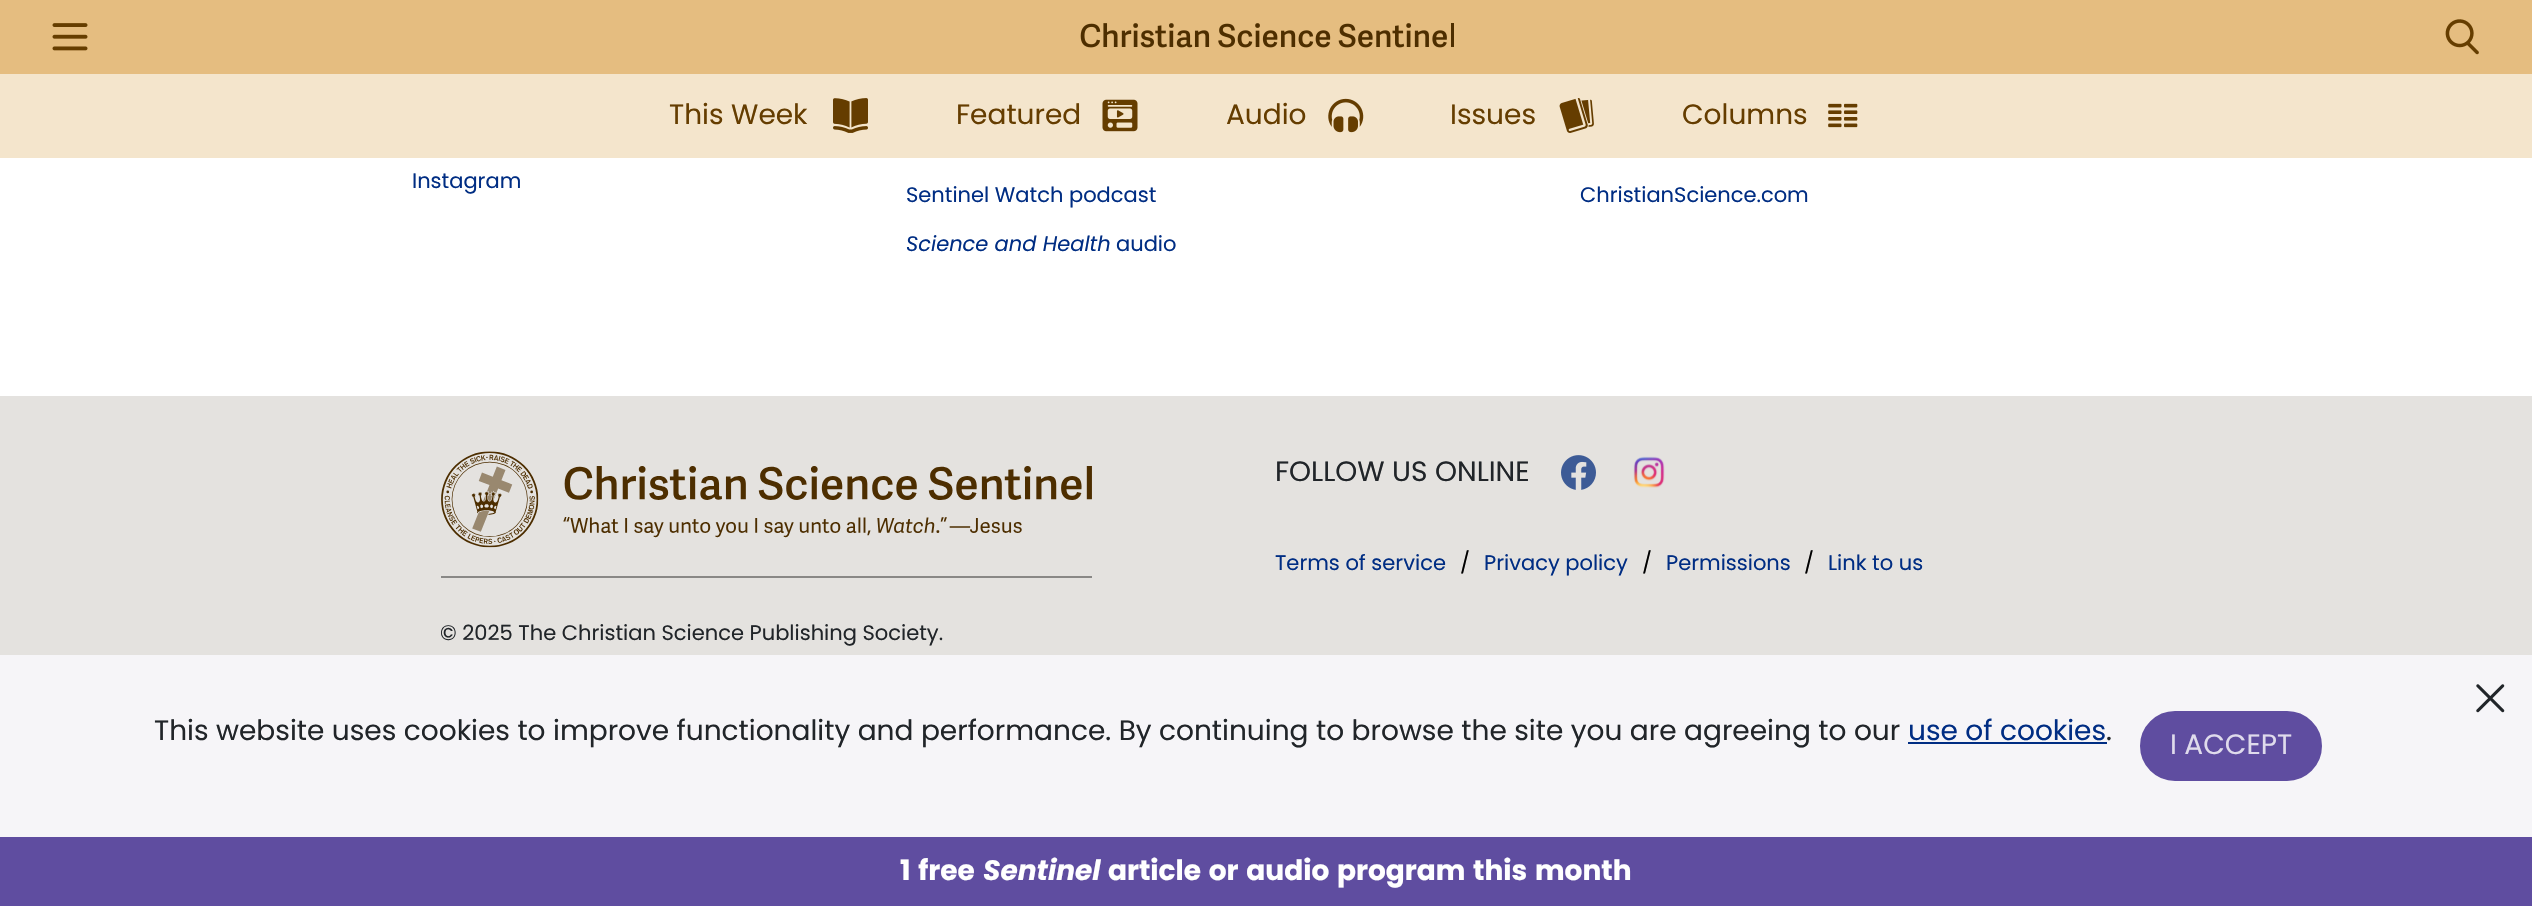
static SkFont makeFont(const char* family, int weight, float size, bool italic = false) {
  SkFontStyle style(weight, SkFontStyle::kNormal_Width,
    italic ? SkFontStyle::kItalic_Slant : SkFontStyle::kUpright_Slant);
  SkFont result(fontMgr->matchFamilyStyle(family, style), size);
  result.setSubpixel(true);
  return result;
}

static void text(SkCanvas* c, const char* s, float x, float y, const SkFont& font, SkColor color) {
  SkPaint ink(SkColor4f::FromColor(color));
  ink.setAntiAlias(true);
  c->drawString(s, x, y, font, ink);
}

static void spacedText(SkCanvas* c, const char* s, float x, float y, const SkFont& font, const SkPaint& ink, float letter, float word) {
  std::vector<SkGlyphID> glyphs(font.countText(s, strlen(s), SkTextEncoding::kUTF8));
  std::vector<float> xs(glyphs.size());
  font.textToGlyphs(s, strlen(s), SkTextEncoding::kUTF8, glyphs);
  font.getXPos(glyphs, xs, x);
  float extra = 0;
  for (size_t i = 0; i < glyphs.size(); i++) {
    xs[i] += extra;
    extra += letter + word * (glyphs[i] == font.unicharToGlyph(' '));
  }
  c->drawTextBlob(SkTextBlob::MakeFromPosHGlyphs(glyphs, xs, y, font), 0, 0, ink);
}

static void box(SkCanvas* c, float l, float t, float r, float b, SkColor color) {
  SkPaint ink(SkColor4f::FromColor(color));
  ink.setAntiAlias(true);
  c->drawRect(SkRect::MakeLTRB(l, t, r, b), ink);
}

static void picture(SkCanvas* c, const char* path, float l, float t, float r, float b) {
  auto image = SkImages::DeferredFromEncodedData(SkData::MakeFromFileName(path));
  c->drawImageRect(image, SkRect::MakeLTRB(l, t, r, b), SkSamplingOptions());
}

void draw(SkCanvas* c) {
  SkPaint paint;
  paint.setAntiAlias(true);
  c->clear(0xffffffff);
  box(c, 0, 0, 2532, 74, 0xffe5bd80);
  picture(c, "img_01.png", 52, 23, 88, 51);
  picture(c, "img_02.png", 1080, 23, 1454, 48);
  picture(c, "img_03.png", 2445, 19, 2479, 55);
  box(c, 0, 74, 2532, 158, 0xfff4e5cc);
  SkFont face1 = makeFont("Poppins", 400, 28);
  text(c, "This Week", 669, 124, face1, 0xff653d00);
  picture(c, "img_04.png", 833, 98, 868, 133);
  text(c, "Featured", 956, 124, face1, 0xff653d00);
  picture(c, "img_05.png", 1102, 99, 1138, 132);
  text(c, "Audio", 1226, 124, face1, 0xff653d00);
  picture(c, "img_06.png", 1328, 98, 1364, 133);
  text(c, "Issues", 1450, 124, face1, 0xff653d00);
  picture(c, "img_07.png", 1559, 98, 1594, 133);
  text(c, "Columns", 1682, 124, face1, 0xff653d00);
  picture(c, "img_08.png", 1828, 103, 1858, 128);
  SkFont face2 = makeFont("Poppins", 400, 21);
  text(c, "Instagram", 412, 188, face2, 0xff002d83);
  text(c, "Sentinel Watch podcast", 906, 202, face2, 0xff002d83);
  SkFont face3 = makeFont("Poppins", 400, 21, true);
  text(c, "Science and Health", 906, 251, face3, 0xff002d83);
  text(c, "audio", 1116, 251, face2, 0xff002d83);
  text(c, "ChristianScience.com", 1580, 202, face2, 0xff002d83);
  box(c, 0, 396, 2532, 837, 0xffe4e2df);
  text(c, "FOLLOW US ONLINE", 1275, 481, face1, 0xff212529);
  picture(c, "img_09.png", 1561, 455, 1596, 490);
  picture(c, "img_10.png", 1633, 456, 1665, 488);
  text(c, "Terms of service", 1275, 570, face2, 0xff002d83);
  text(c, "/", 1460, 570, face2, 0xff000000);
  text(c, "Privacy policy", 1484, 570, face2, 0xff002d83);
  text(c, "/", 1642, 570, face2, 0xff000000);
  text(c, "Permissions", 1666, 570, face2, 0xff002d83);
  text(c, "/", 1804, 570, face2, 0xff000000);
  text(c, "Link to us", 1828, 570, face2, 0xff002d83);
  picture(c, "img_11.png", 441, 451, 1092, 548);
  box(c, 441, 576, 1092, 578, 0xff898886);
  text(c, "© 2025 The Christian Science Publishing Society.", 440, 640, face2, 0xff212529);
  box(c, 0, 655, 2532, 837, 0xebf7f6fa);
  picture(c, "img_12.png", 2476, 684, 2505, 713);
  text(c, "This website uses cookies to improve functionality and performance. By continuing to browse the site you are agreeing to our", 154, 740, face1, 0xff212529);
  text(c, "use of cookies", 1908, 740, face1, 0xff002d83);
  box(c, 1908, 742, 2107, 744, 0xff002d83);
  text(c, ".", 2106, 740, face1, 0xff212529);
  paint.setColor(0xff5f4da0);
  c->drawRoundRect(SkRect::MakeLTRB(2141, 712, 2321, 780), 34, 34, paint);
  paint.setStyle(SkPaint::kStroke_Style);
  paint.setStrokeWidth(2);
  c->drawRoundRect(SkRect::MakeLTRB(2141, 712, 2321, 780), 34, 34, paint);
  text(c, "I ACCEPT", 2170, 754, face1, 0xffdfdbec);
  box(c, 0, 837, 2532, 906, 0xff5f4da0);
  SkFont face4 = makeFont("Poppins", 700, 28);
  paint.setStyle(SkPaint::kFill_Style);
  paint.setColor(0xffffffff);
  spacedText(c, "1 free", 900, 880, face4, paint, 0, 1.75f);
  SkFont face5 = makeFont("Poppins", 700, 28, true);
  text(c, "Sentinel", 983, 880, face5, 0xffffffff);
  spacedText(c, "article or audio program this month", 1108, 880, face4, paint, 0, 1.75f);
}
